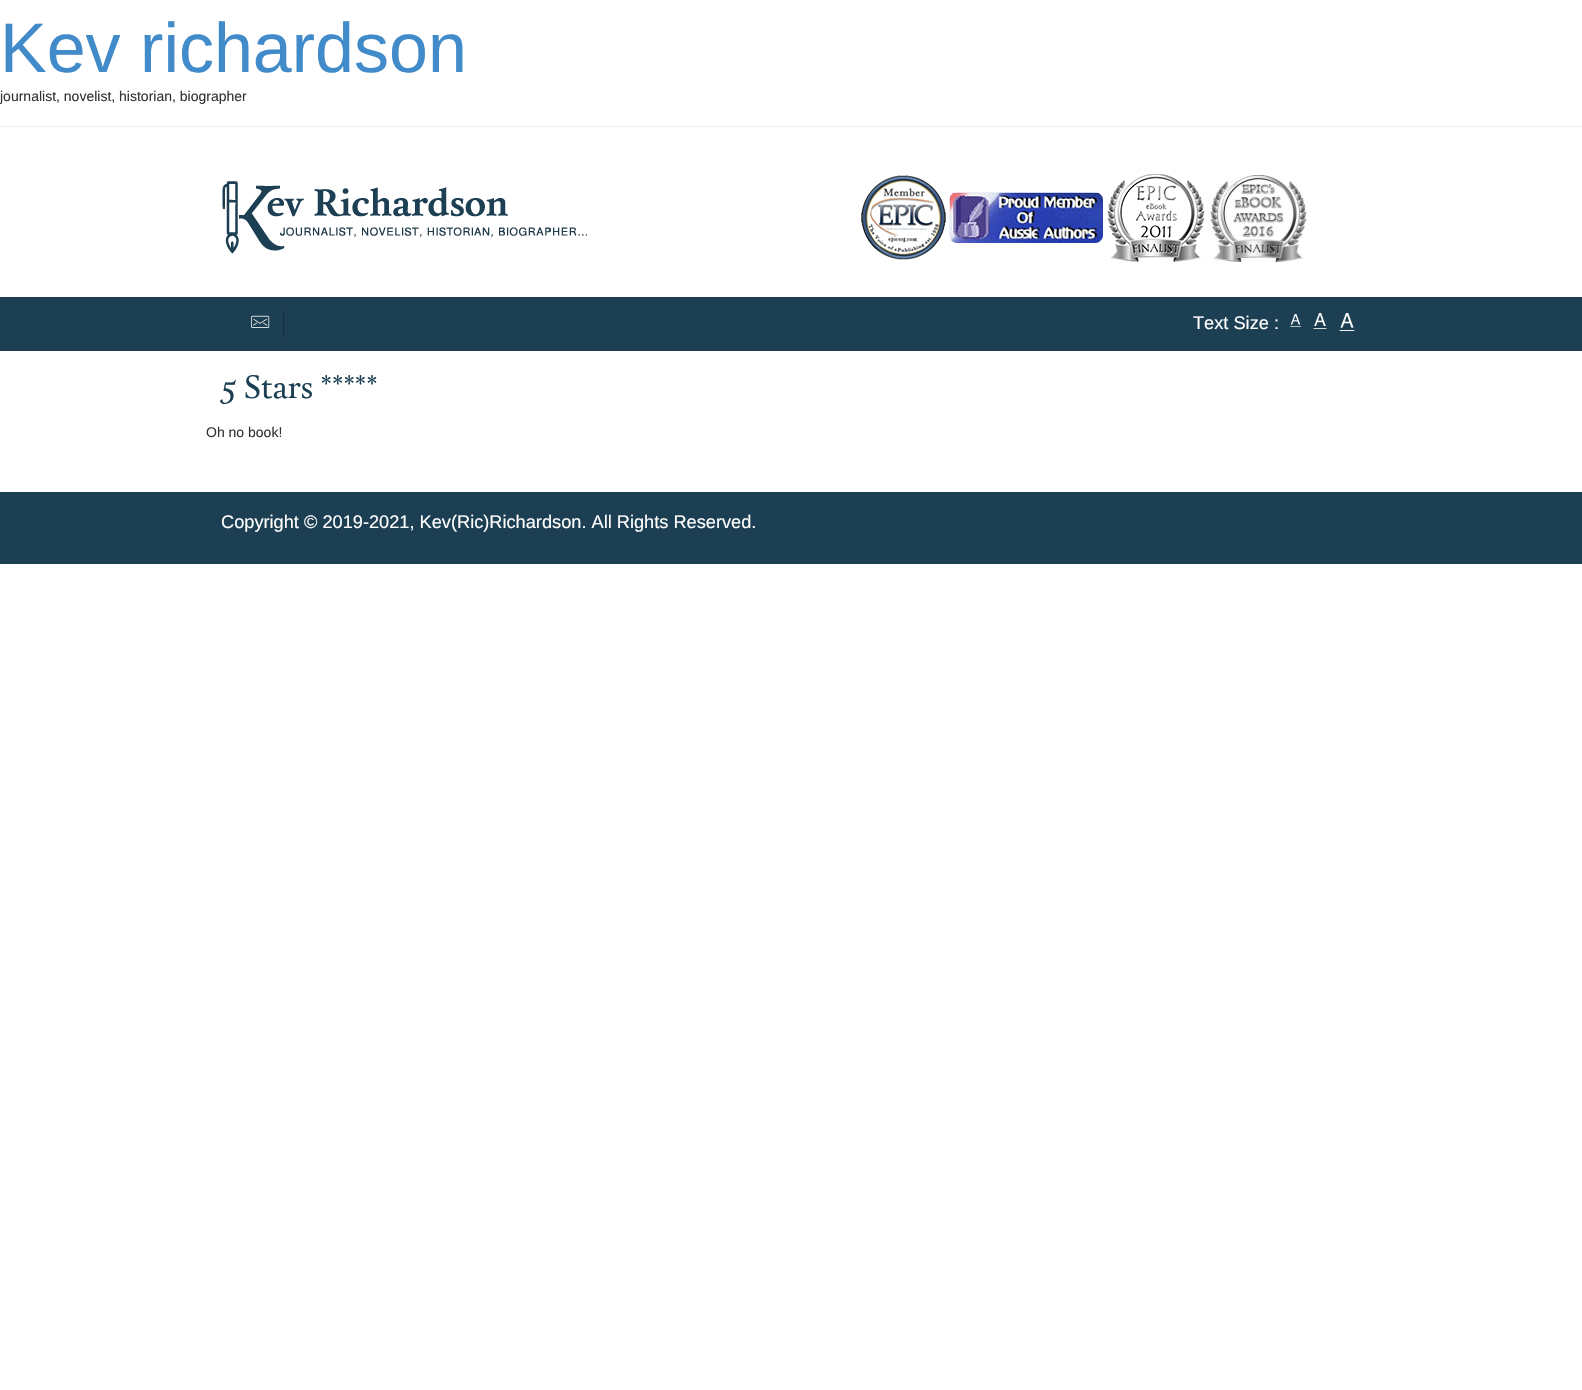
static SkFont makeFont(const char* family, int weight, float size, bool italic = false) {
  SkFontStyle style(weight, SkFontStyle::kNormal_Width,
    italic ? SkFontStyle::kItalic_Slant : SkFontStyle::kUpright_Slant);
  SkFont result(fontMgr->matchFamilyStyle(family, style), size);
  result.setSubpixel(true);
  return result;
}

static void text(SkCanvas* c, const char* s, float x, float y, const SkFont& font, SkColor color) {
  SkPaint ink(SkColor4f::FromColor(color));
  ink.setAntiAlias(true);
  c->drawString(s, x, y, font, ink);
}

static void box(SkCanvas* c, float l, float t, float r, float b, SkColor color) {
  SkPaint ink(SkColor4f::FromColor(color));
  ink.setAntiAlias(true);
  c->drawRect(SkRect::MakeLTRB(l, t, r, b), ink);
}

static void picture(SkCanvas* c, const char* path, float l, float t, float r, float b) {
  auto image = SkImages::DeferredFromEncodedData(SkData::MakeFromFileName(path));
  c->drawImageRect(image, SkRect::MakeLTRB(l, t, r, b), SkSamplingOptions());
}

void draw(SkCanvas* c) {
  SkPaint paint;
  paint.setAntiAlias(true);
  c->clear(0xffffffff);
  SkFont face1 = makeFont("Liberation Sans", 400, 70);
  text(c, "Kev richardson", 0, 72, face1, 0xff428bca);
  SkFont face2 = makeFont("Liberation Sans", 400, 14);
  text(c, "journalist, novelist, historian, biographer", 0, 101, face2, 0xff333333);
  box(c, 0, 126, 1582, 127, 0xffeeeeee);
  picture(c, "img_01.png", 222, 181, 587, 254);
  picture(c, "img_02.png", 861, 174, 1308, 262);
  box(c, 0, 297, 1582, 351, 0xff1c3f53);
  box(c, 283, 310, 284, 337, 0xff133041);
  picture(c, "img_03.png", 251, 315, 270, 328);
  SkFont face3 = makeFont("Liberation Sans", 400, 18.2f);
  text(c, "Text Size :", 1193, 329, face3, 0xffffffff);
  picture(c, "img_04.png", 1290, 314, 1301, 327);
  picture(c, "img_05.png", 1313, 313, 1327, 329);
  picture(c, "img_06.png", 1339, 313, 1355, 331);
  SkFont face4 = makeFont("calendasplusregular", 400, 28);
  text(c, "5 Stars *****", 221, 398, face4, 0xff1c3f53);
  text(c, "Oh no book!", 206, 437, face2, 0xff333333);
  box(c, 0, 492, 1582, 564, 0xff1c3f53);
  text(c, "Copyright © 2019-2021, Kev(Ric)Richardson. All Rights Reserved.", 221, 528, face3, 0xffffffff);
}
